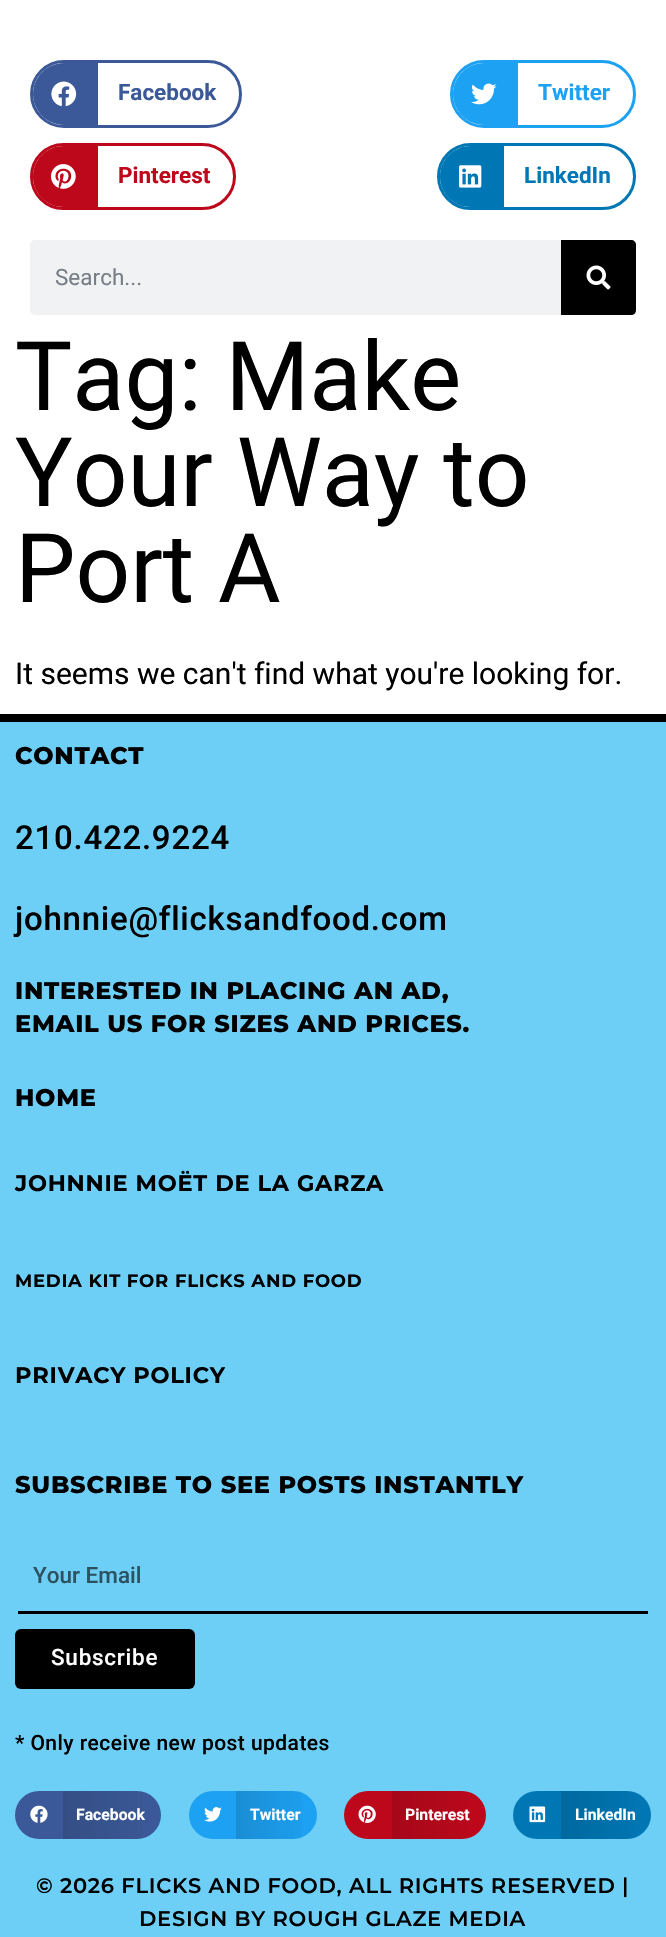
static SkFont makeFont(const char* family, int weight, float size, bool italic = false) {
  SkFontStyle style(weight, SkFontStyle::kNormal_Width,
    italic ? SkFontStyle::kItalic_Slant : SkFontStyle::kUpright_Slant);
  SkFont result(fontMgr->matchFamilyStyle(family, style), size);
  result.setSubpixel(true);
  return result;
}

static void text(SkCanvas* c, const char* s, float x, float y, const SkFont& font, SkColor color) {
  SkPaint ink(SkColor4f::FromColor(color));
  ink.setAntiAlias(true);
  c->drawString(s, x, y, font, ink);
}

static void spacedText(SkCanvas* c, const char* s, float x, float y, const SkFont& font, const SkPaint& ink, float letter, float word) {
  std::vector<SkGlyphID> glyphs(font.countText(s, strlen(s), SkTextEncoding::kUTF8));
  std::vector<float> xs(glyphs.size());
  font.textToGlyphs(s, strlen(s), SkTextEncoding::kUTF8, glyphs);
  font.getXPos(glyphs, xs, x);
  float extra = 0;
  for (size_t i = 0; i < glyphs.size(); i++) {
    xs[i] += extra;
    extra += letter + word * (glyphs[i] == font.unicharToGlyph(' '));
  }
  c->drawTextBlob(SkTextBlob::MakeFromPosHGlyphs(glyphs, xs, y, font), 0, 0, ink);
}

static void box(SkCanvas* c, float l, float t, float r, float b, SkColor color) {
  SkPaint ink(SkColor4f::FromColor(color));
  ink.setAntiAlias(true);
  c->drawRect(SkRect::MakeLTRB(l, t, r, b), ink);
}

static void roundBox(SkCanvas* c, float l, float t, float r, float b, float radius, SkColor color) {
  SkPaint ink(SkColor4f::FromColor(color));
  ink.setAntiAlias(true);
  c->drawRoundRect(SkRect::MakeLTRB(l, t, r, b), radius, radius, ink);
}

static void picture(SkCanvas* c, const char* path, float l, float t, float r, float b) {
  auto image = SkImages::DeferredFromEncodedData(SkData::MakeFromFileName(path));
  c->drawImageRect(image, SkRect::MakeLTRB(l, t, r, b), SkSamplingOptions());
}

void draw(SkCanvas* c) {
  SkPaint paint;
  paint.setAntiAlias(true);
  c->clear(0xffffffff);
  paint.setStyle(SkPaint::kStroke_Style);
  paint.setStrokeWidth(3);
  paint.setColor(0xff3b5998);
  c->drawRoundRect(SkRect::MakeLTRB(31.5f, 61.5f, 240.5f, 126.5f), 32.5f, 32.5f, paint);
  paint.setStyle(SkPaint::kFill_Style);
  c->drawPath(SkPathBuilder().moveTo(64, 63).lineTo(98, 63).lineTo(98, 125).lineTo(64, 125).cubicTo(47, 125, 33, 111, 33, 94).cubicTo(33, 77, 47, 63, 64, 63).close().detach(), paint);
  picture(c, "img_01.png", 51, 81, 77, 107);
  SkFont face1 = makeFont("Roboto", 700, 22.5f);
  text(c, "Facebook", 118, 100, face1, 0xff3b5998);
  paint.setStyle(SkPaint::kStroke_Style);
  paint.setColor(0xff1da1f2);
  c->drawRoundRect(SkRect::MakeLTRB(451.5f, 61.5f, 634.5f, 126.5f), 32.5f, 32.5f, paint);
  paint.setStyle(SkPaint::kFill_Style);
  c->drawPath(SkPathBuilder().moveTo(484, 63).lineTo(518, 63).lineTo(518, 125).lineTo(484, 125).cubicTo(467, 125, 453, 111, 453, 94).cubicTo(453, 77, 467, 63, 484, 63).close().detach(), paint);
  picture(c, "img_02.png", 471, 83, 497, 105);
  text(c, "Twitter", 538, 100, face1, 0xff1da1f2);
  paint.setStyle(SkPaint::kStroke_Style);
  paint.setColor(0xffbd081c);
  c->drawRoundRect(SkRect::MakeLTRB(31.5f, 144.5f, 234.5f, 208.5f), 32, 32, paint);
  paint.setStyle(SkPaint::kFill_Style);
  c->drawPath(SkPathBuilder().moveTo(63.5f, 146).lineTo(98, 146).lineTo(98, 207).lineTo(63.5f, 207).cubicTo(46.5f, 207, 33, 193.5f, 33, 176.5f).cubicTo(33, 159.5f, 46.5f, 146, 63.5f, 146).close().detach(), paint);
  picture(c, "img_03.png", 51, 164, 76, 189);
  text(c, "Pinterest", 118, 183, face1, 0xffbd081c);
  paint.setStyle(SkPaint::kStroke_Style);
  paint.setColor(0xff0077b5);
  c->drawRoundRect(SkRect::MakeLTRB(438.5f, 144.5f, 634.5f, 208.5f), 32, 32, paint);
  paint.setStyle(SkPaint::kFill_Style);
  c->drawPath(SkPathBuilder().moveTo(470.5f, 146).lineTo(504, 146).lineTo(504, 207).lineTo(470.5f, 207).cubicTo(453.5f, 207, 440, 193.5f, 440, 176.5f).cubicTo(440, 159.5f, 453.5f, 146, 470.5f, 146).close().detach(), paint);
  picture(c, "img_04.png", 459, 165, 482, 188);
  text(c, "LinkedIn", 524, 183, face1, 0xff0077b5);
  roundBox(c, 30, 240, 636, 315, 5, 0xfff1f2f3);
  SkFont face2 = makeFont("Roboto", 400, 22.5f);
  text(c, "Search...", 55, 285, face2, 0xff787e86);
  paint.setColor(0xff000000);
  c->drawPath(SkPathBuilder().moveTo(561, 240).lineTo(631, 240).cubicTo(634, 240, 636, 242, 636, 245).lineTo(636, 310).cubicTo(636, 313, 634, 315, 631, 315).lineTo(561, 315).close().detach(), paint);
  picture(c, "img_05.png", 586, 265, 611, 290);
  SkFont face3 = makeFont("Roboto", 400, 96);
  text(c, "Tag: Make", 15, 410, face3, 0xff000000);
  text(c, "Your Way to", 15, 506, face3, 0xff000000);
  text(c, "Port A", 15, 602, face3, 0xff000000);
  SkFont face4 = makeFont("Roboto", 400, 30);
  text(c, "It seems we can't find what you're looking for.", 15, 684, face4, 0xff000000);
  box(c, 0, 722, 666, 1937, 0xff6dcef6);
  box(c, 0, 714, 666, 722, 0xff000000);
  SkFont face5 = makeFont("Montserrat", 800, 24);
  spacedText(c, "CONTACT", 15, 764, face5, paint, 0.75f, 0);
  SkFont face6 = makeFont("Roboto", 500, 33);
  spacedText(c, "210.422.9224", 15, 849, face6, paint, 0.75f, 0);
  spacedText(c, "johnnie@flicksandfood.com", 15, 930, face6, paint, 0.75f, 0);
  spacedText(c, "INTERESTED IN PLACING AN AD,", 15, 999, face5, paint, 0.75f, 0);
  spacedText(c, "EMAIL US FOR SIZES AND PRICES.", 15, 1032, face5, paint, 0.75f, 0);
  spacedText(c, "HOME", 15, 1106, face5, paint, 0.75f, 0);
  SkFont face7 = makeFont("Montserrat", 700, 22.5f);
  spacedText(c, "JOHNNIE MOËT DE LA GARZA", 15, 1191, face7, paint, 0.75f, 0);
  SkFont face8 = makeFont("Montserrat", 700, 18);
  spacedText(c, "MEDIA KIT FOR FLICKS AND FOOD", 15, 1287, face8, paint, 0.75f, 0);
  spacedText(c, "PRIVACY POLICY", 15, 1383, face7, paint, 0.75f, 0);
  spacedText(c, "SUBSCRIBE TO SEE POSTS INSTANTLY", 15, 1493, face5, paint, 0.75f, 0);
  box(c, 18, 1611, 648, 1614, 0xff000000);
  SkFont face9 = makeFont("Roboto", 500, 22.5f);
  text(c, "Your Email", 33, 1583, face9, 0xff2c5262);
  roundBox(c, 15, 1629, 195, 1689, 6, 0xff000000);
  paint.setColor(0xffffffff);
  spacedText(c, "Subscribe", 51, 1665, face9, paint, 0.75f, 0);
  SkFont face10 = makeFont("Roboto", 500, 21);
  paint.setColor(0xff000000);
  spacedText(c, "* Only receive new post updates", 15, 1750, face10, paint, 0.45f, 0);
  roundBox(c, 15, 1791, 161, 1839, 24, 0xff3b5998);
  picture(c, "img_06.png", 30, 1805, 48, 1823);
  {
    const SkColor colors[] = {0x1f000000, 0x00000000};
    const float stops[] = {0, 1};
    const SkPoint ends[] = {{63, 1815}, {161, 1815}};
    paint.setShader(SkGradientShader::MakeLinear(ends, colors, stops, 2, SkTileMode::kClamp));
    paint.setAlpha(255);
  }
  c->drawRect(SkRect::MakeLTRB(63, 1791, 143, 1839), paint);
  SkFont face11 = makeFont("Roboto", 700, 15.75f);
  text(c, "Facebook", 76, 1820, face11, 0xffffffff);
  roundBox(c, 189, 1791, 317, 1839, 24, 0xff1da1f2);
  picture(c, "img_07.png", 204, 1807, 222, 1822);
  {
    const SkColor colors[] = {0x1f000000, 0x00000000};
    const float stops[] = {0, 1};
    const SkPoint ends[] = {{236, 1815}, {317, 1815}};
    paint.setShader(SkGradientShader::MakeLinear(ends, colors, stops, 2, SkTileMode::kClamp));
    paint.setAlpha(255);
  }
  c->drawRect(SkRect::MakeLTRB(236, 1791, 302, 1839), paint);
  text(c, "Twitter", 250, 1820, face11, 0xffffffff);
  roundBox(c, 344, 1791, 486, 1839, 24, 0xffbd081c);
  picture(c, "img_08.png", 358, 1805, 376, 1823);
  {
    const SkColor colors[] = {0x1f000000, 0x00000000};
    const float stops[] = {0, 1};
    const SkPoint ends[] = {{392, 1815}, {486, 1815}};
    paint.setShader(SkGradientShader::MakeLinear(ends, colors, stops, 2, SkTileMode::kClamp));
    paint.setAlpha(255);
  }
  c->drawRect(SkRect::MakeLTRB(392, 1791, 469, 1839), paint);
  text(c, "Pinterest", 405, 1820, face11, 0xffffffff);
  roundBox(c, 513, 1791, 651, 1839, 24, 0xff0077b5);
  picture(c, "img_09.png", 529, 1806, 546, 1823);
  {
    const SkColor colors[] = {0x1f000000, 0x00000000};
    const float stops[] = {0, 1};
    const SkPoint ends[] = {{561, 1815}, {651, 1815}};
    paint.setShader(SkGradientShader::MakeLinear(ends, colors, stops, 2, SkTileMode::kClamp));
    paint.setAlpha(255);
  }
  c->drawRect(SkRect::MakeLTRB(561, 1791, 635, 1839), paint);
  text(c, "LinkedIn", 575, 1820, face11, 0xffffffff);
  SkFont face12 = makeFont("Montserrat", 600, 21);
  paint.setShader(nullptr);
  paint.setColor(0xff000000);
  spacedText(c, "© 2026 FLICKS AND FOOD, ALL RIGHTS RESERVED |", 36, 1893, face12, paint, 0.75f, 0);
  spacedText(c, "DESIGN BY ROUGH GLAZE MEDIA", 139, 1926, face12, paint, 0.75f, 0);
}
